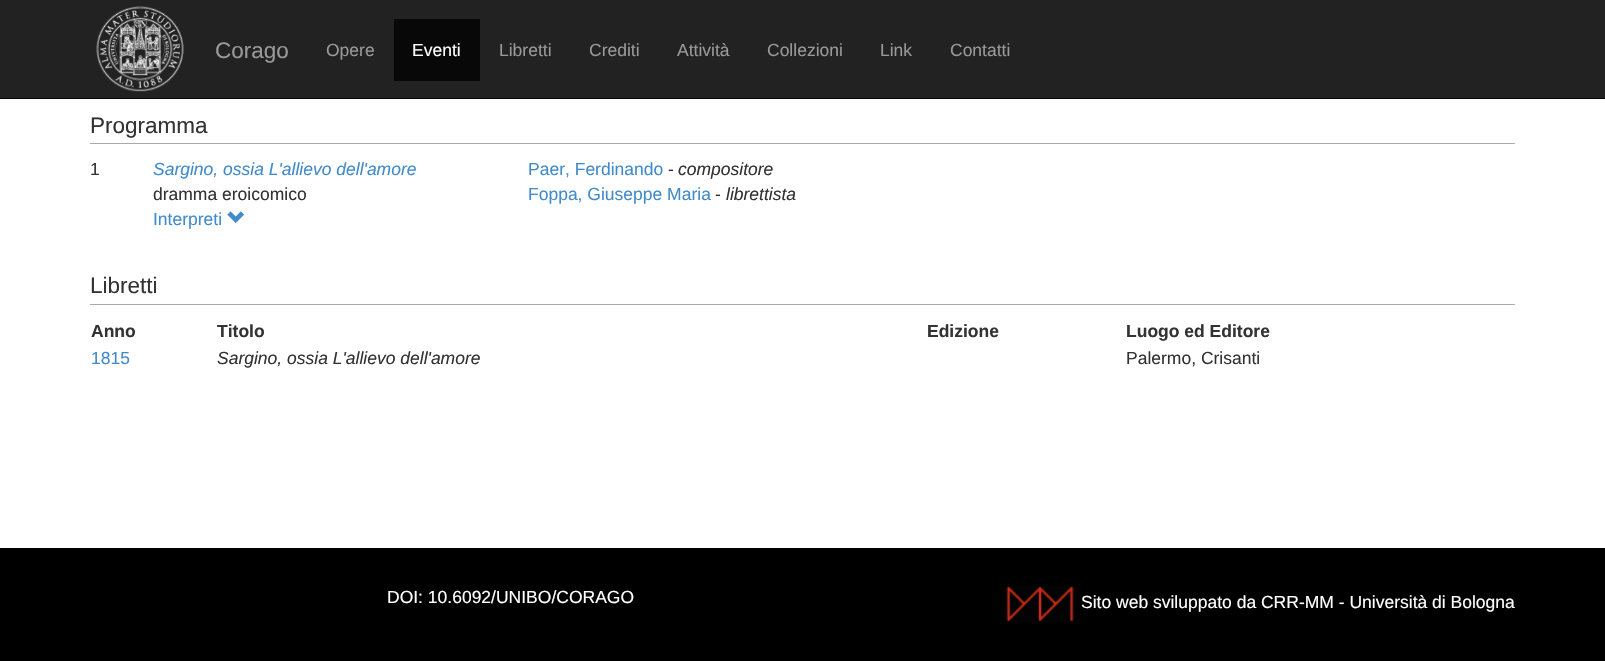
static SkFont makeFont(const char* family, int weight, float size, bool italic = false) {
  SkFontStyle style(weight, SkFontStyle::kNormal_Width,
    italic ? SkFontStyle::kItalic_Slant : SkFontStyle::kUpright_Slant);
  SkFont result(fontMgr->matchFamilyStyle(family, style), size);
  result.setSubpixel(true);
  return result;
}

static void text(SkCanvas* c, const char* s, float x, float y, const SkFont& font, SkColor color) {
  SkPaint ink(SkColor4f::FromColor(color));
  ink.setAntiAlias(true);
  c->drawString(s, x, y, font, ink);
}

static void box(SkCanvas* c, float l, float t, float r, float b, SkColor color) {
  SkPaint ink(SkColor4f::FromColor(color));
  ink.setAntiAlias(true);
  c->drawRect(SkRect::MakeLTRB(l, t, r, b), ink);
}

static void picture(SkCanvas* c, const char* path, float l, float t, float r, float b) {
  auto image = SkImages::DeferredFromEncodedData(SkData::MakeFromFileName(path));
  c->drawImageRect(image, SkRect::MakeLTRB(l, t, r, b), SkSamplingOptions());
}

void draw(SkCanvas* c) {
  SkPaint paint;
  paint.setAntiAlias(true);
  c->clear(0xffffffff);
  box(c, 0, 0, 1605, 98, 0xff222222);
  box(c, 0, 98, 1605, 99, 0xff080808);
  picture(c, "img_01.png", 96, 6, 184, 92);
  SkFont face1 = makeFont("Liberation Sans", 400, 22.5f);
  text(c, "Corago", 215, 58, face1, 0xff999999);
  SkFont face2 = makeFont("Liberation Sans", 400, 17.5f);
  text(c, "Opere", 326, 56, face2, 0xff999999);
  box(c, 394, 19, 480, 81, 0xff080808);
  text(c, "Eventi", 412, 56, face2, 0xffffffff);
  text(c, "Libretti", 499, 56, face2, 0xff999999);
  text(c, "Crediti", 589, 56, face2, 0xff999999);
  text(c, "Attività", 677, 56, face2, 0xff999999);
  text(c, "Collezioni", 767, 56, face2, 0xff999999);
  text(c, "Link", 880, 56, face2, 0xff999999);
  text(c, "Contatti", 950, 56, face2, 0xff999999);
  box(c, 90, 143, 1515, 144, 0xffaaaaaa);
  text(c, "Programma", 90, 133, face1, 0xff333333);
  text(c, "1", 90, 175, face2, 0xff333333);
  SkFont face3 = makeFont("Liberation Sans", 400, 17.5f, true);
  text(c, "Sargino, ossia L'allievo dell'amore", 153, 175, face3, 0xff428bca);
  text(c, "dramma eroicomico", 153, 200, face2, 0xff333333);
  text(c, "Paer, Ferdinando", 528, 175, face2, 0xff428bca);
  text(c, "-", 668, 175, face2, 0xff333333);
  text(c, "compositore", 678, 175, face3, 0xff333333);
  text(c, "Foppa, Giuseppe Maria", 528, 200, face2, 0xff428bca);
  text(c, "-", 715, 200, face2, 0xff333333);
  text(c, "librettista", 726, 200, face3, 0xff333333);
  text(c, "Interpreti", 153, 225, face2, 0xff428bca);
  picture(c, "img_02.png", 227, 211, 245, 223);
  box(c, 90, 304, 1515, 305, 0xffaaaaaa);
  text(c, "Libretti", 90, 293, face1, 0xff333333);
  SkFont face4 = makeFont("Liberation Sans", 700, 17.5f);
  text(c, "Anno", 91, 337, face4, 0xff333333);
  text(c, "Titolo", 217, 337, face4, 0xff333333);
  text(c, "Edizione", 927, 337, face4, 0xff333333);
  text(c, "Luogo ed Editore", 1126, 337, face4, 0xff333333);
  text(c, "1815", 91, 364, face2, 0xff428bca);
  text(c, "Sargino, ossia L'allievo dell'amore", 217, 364, face3, 0xff333333);
  text(c, "Palermo, Crisanti", 1126, 364, face2, 0xff333333);
  box(c, 0, 548, 1605, 661, 0xff000000);
  text(c, "DOI: 10.6092/UNIBO/CORAGO", 387, 603, face2, 0xffffffff);
  picture(c, "img_03.png", 1006, 586, 1074, 622);
  text(c, "Sito web sviluppato da CRR-MM - Università di Bologna", 1081, 608, face2, 0xffffffff);
}
